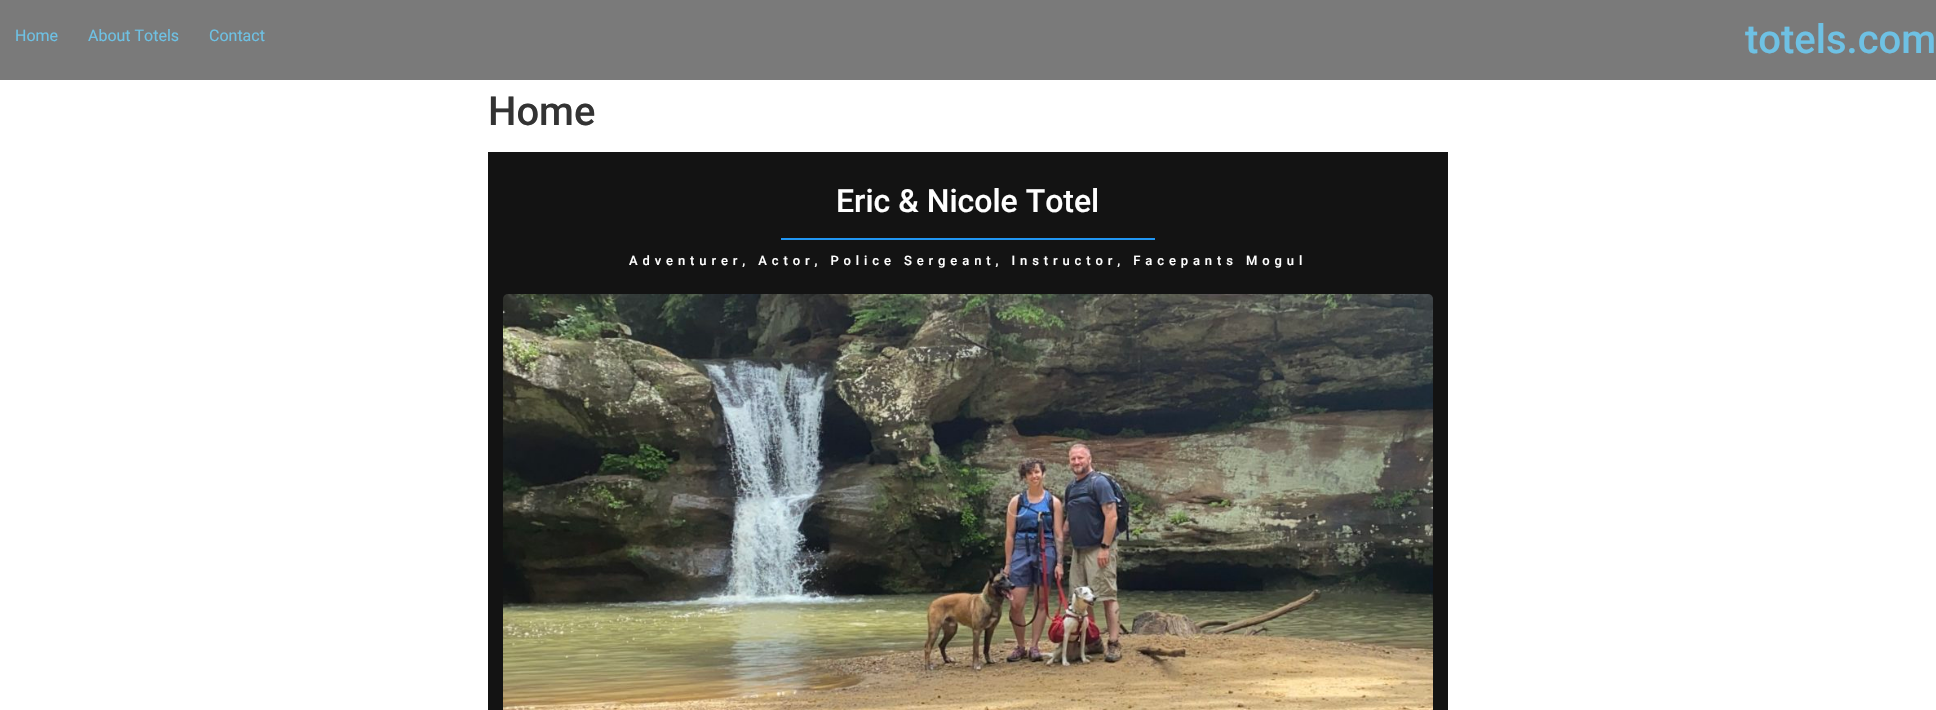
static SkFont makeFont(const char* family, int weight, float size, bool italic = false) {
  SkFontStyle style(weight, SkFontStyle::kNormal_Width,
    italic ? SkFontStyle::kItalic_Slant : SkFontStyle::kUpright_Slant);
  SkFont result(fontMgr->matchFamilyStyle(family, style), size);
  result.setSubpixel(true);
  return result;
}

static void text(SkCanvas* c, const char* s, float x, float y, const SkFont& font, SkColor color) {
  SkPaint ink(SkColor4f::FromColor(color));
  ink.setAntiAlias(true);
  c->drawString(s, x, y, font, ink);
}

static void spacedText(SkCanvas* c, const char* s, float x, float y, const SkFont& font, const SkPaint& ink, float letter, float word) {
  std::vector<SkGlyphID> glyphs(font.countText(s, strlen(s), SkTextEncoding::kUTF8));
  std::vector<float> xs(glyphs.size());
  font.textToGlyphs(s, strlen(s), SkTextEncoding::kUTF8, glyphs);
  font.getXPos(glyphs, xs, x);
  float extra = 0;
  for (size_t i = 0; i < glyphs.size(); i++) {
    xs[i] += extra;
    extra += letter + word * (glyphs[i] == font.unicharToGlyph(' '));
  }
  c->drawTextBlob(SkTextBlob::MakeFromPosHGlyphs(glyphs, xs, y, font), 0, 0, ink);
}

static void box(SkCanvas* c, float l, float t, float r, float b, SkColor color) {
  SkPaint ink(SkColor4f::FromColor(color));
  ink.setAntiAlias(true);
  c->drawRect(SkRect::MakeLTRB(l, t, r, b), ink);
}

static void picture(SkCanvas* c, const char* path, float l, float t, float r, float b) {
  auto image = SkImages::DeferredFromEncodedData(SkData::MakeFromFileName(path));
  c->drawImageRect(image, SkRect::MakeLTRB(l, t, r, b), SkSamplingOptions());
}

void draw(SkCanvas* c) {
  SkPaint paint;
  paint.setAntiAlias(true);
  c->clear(0xffffffff);
  box(c, 0, 0, 1936, 80, 0xff7a7a7a);
  SkFont face1 = makeFont("Roboto", 400, 16);
  text(c, "Home", 15, 41, face1, 0xff6ec1e4);
  text(c, "About Totels", 88, 41, face1, 0xff6ec1e4);
  text(c, "Contact", 209, 41, face1, 0xff6ec1e4);
  SkFont face2 = makeFont("Roboto", 500, 40);
  text(c, "totels.com", 1745, 53, face2, 0xff6ec1e4);
  text(c, "Home", 488, 125, face2, 0xff333333);
  box(c, 488, 152, 1448, 710, 0xff131313);
  SkFont face3 = makeFont("Roboto", 500, 32);
  text(c, "Eric & Nicole Totel", 836, 212, face3, 0xffffffff);
  box(c, 781, 238, 1155, 240, 0xff2196f3);
  SkFont face4 = makeFont("Roboto", 500, 13);
  paint.setColor(0xffffffff);
  spacedText(c, "Adventurer, Actor, Police Sergeant, Instructor, Facepants Mogul", 629, 265, face4, paint, 4.9f, 0);
  picture(c, "img_01.png", 503, 294, 1433, 710);
}
